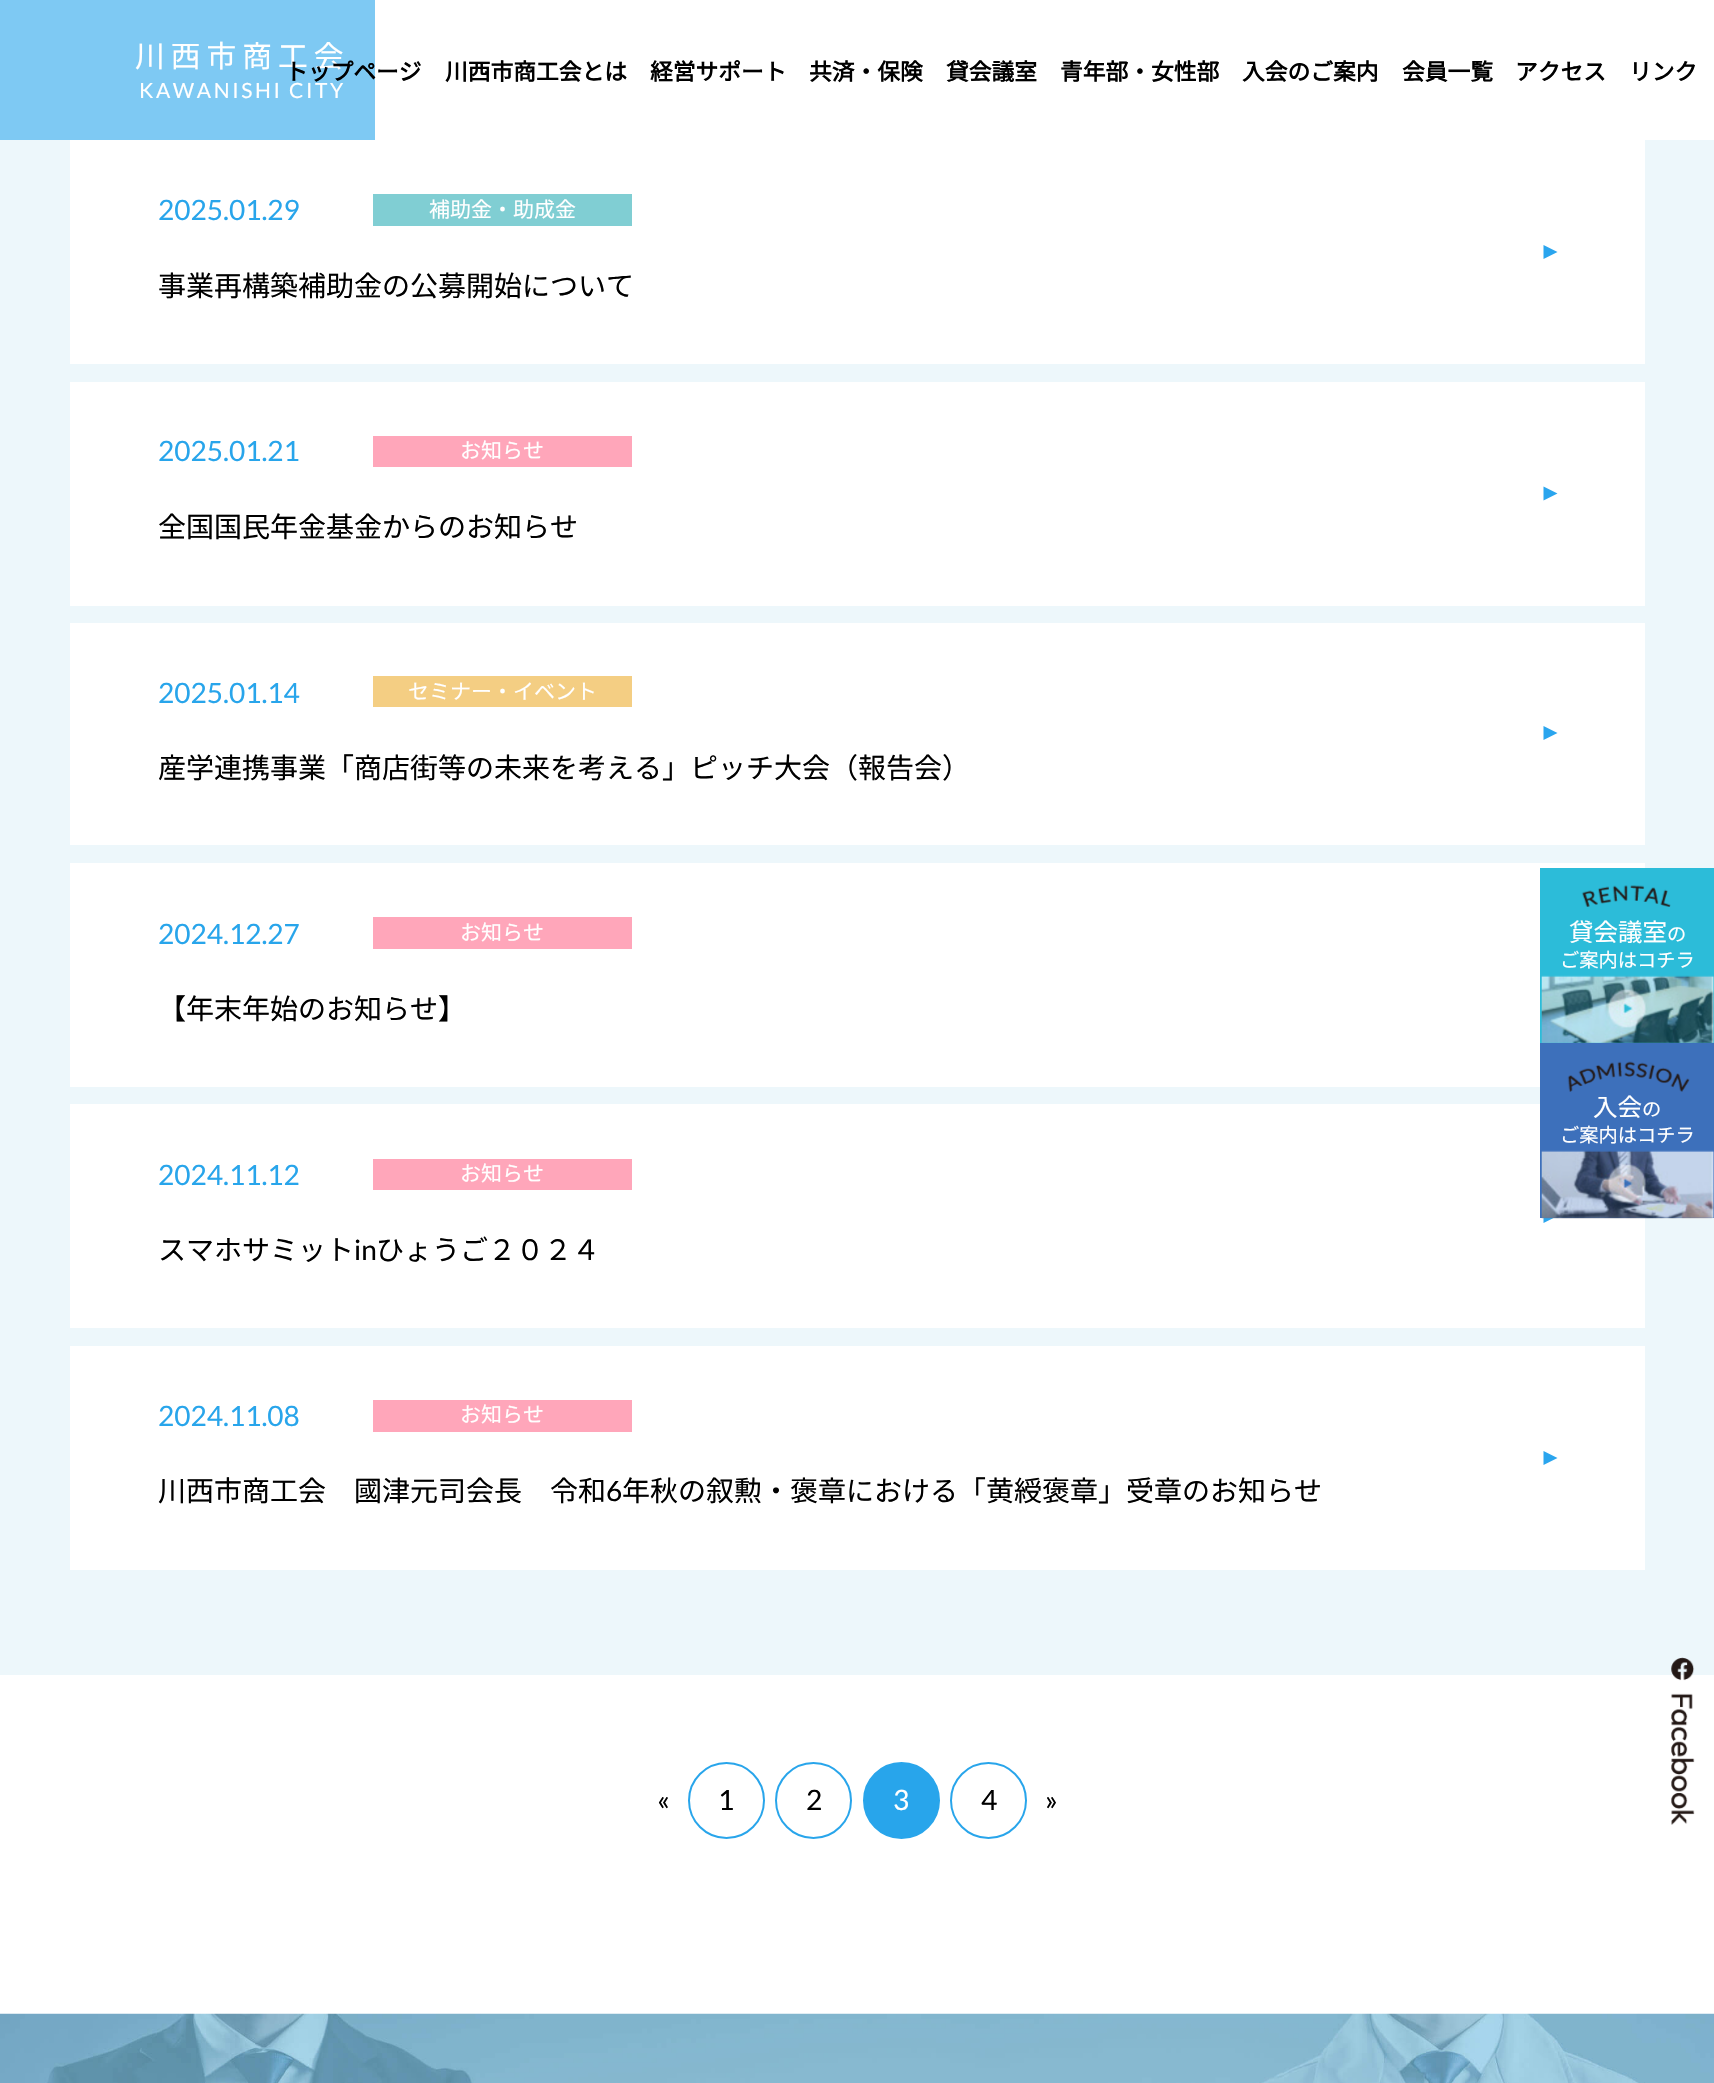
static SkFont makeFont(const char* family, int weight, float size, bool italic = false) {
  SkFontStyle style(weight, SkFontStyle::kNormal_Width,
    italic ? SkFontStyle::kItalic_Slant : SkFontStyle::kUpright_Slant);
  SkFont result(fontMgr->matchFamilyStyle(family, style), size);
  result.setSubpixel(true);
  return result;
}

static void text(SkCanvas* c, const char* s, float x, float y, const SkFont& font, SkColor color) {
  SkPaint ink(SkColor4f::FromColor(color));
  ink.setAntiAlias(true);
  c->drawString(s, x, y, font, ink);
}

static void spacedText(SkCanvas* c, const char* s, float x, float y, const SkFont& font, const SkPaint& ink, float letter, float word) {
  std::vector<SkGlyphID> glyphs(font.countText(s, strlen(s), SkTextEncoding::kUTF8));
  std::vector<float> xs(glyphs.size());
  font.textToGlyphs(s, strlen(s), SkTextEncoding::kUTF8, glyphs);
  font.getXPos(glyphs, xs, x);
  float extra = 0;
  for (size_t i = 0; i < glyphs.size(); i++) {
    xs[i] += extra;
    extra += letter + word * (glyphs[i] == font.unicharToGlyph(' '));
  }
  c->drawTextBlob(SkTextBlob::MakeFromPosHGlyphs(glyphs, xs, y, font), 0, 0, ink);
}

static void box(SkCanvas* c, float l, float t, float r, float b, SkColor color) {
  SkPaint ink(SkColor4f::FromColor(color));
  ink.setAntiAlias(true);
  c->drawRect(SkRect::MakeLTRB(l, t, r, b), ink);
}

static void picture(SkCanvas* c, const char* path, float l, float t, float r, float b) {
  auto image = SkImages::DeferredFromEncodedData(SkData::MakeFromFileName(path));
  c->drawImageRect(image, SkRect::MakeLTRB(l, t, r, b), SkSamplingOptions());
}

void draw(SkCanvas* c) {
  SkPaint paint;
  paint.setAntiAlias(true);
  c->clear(0xffffffff);
  box(c, 0, 0, 375, 140, 0xff7ec9f3);
  SkFont face1 = makeFont("Noto Sans JP", 100, 29.75f);
  paint.setColor(0xffffffff);
  spacedText(c, "川西市商工会", 135, 67, face1, paint, 6, 0);
  SkFont face2 = makeFont("Lato", 400, 21);
  spacedText(c, "KAWANISHI CITY", 139, 98, face2, paint, 2.6f, 0);
  SkFont face3 = makeFont("Noto Sans JP", 700, 22.75f);
  text(c, "トップページ", 285, 80, face3, 0xff000000);
  text(c, "川西市商工会とは", 445, 80, face3, 0xff000000);
  text(c, "経営サポート", 650, 80, face3, 0xff000000);
  text(c, "共済・保険", 809, 80, face3, 0xff000000);
  text(c, "貸会議室", 946, 80, face3, 0xff000000);
  text(c, "青年部・女性部", 1060, 80, face3, 0xff000000);
  text(c, "入会のご案内", 1242, 80, face3, 0xff000000);
  text(c, "会員一覧", 1402, 80, face3, 0xff000000);
  text(c, "アクセス", 1515, 80, face3, 0xff000000);
  text(c, "リンク", 1629, 80, face3, 0xff000000);
  box(c, 0, 140, 1714, 1675, 0xffedf7fb);
  box(c, 70, 140, 1645, 364, 0xffffffff);
  SkFont face4 = makeFont("Lato", 400, 28);
  text(c, "2025.01.29", 158, 220, face4, 0xff28a5eb);
  box(c, 373, 194, 632, 226, 0xff80ced3);
  SkFont face5 = makeFont("Noto Sans JP", 100, 21);
  text(c, "補助金・助成金", 429, 217, face5, 0xffffffff);
  paint.setColor(0xff2aa5ee);
  c->drawPath(SkPathBuilder().moveTo(1543.5f, 259).lineTo(1543.5f, 245).lineTo(1557.5f, 252).close().detach(), paint);
  SkFont face6 = makeFont("Noto Sans JP", 100, 28);
  text(c, "事業再構築補助金の公募開始について", 158, 296, face6, 0xff000000);
  box(c, 70, 382, 1645, 606, 0xffffffff);
  text(c, "2025.01.21", 158, 461, face4, 0xff28a5eb);
  box(c, 373, 436, 632, 467, 0xffffa6ba);
  text(c, "お知らせ", 460, 458, face5, 0xffffffff);
  c->drawPath(SkPathBuilder().moveTo(1543.5f, 500.5f).lineTo(1543.5f, 486.5f).lineTo(1557.5f, 493.5f).close().detach(), paint);
  text(c, "全国国民年金基金からのお知らせ", 158, 537, face6, 0xff000000);
  box(c, 70, 623, 1645, 845, 0xffffffff);
  text(c, "2025.01.14", 158, 703, face4, 0xff28a5eb);
  box(c, 373, 676, 632, 707, 0xfff4ce83);
  text(c, "セミナー・イベント", 408, 699, face5, 0xffffffff);
  c->drawPath(SkPathBuilder().moveTo(1543.5f, 740).lineTo(1543.5f, 726).lineTo(1557.5f, 733).close().detach(), paint);
  text(c, "産学連携事業「商店街等の未来を考える」ピッチ大会（報告会）", 158, 778, face6, 0xff000000);
  box(c, 70, 863, 1645, 1087, 0xffffffff);
  text(c, "2024.12.27", 158, 944, face4, 0xff28a5eb);
  box(c, 373, 917, 632, 949, 0xffffa6ba);
  text(c, "お知らせ", 460, 940, face5, 0xffffffff);
  text(c, "【年末年始のお知らせ】", 158, 1019, face6, 0xff000000);
  box(c, 70, 1104, 1645, 1328, 0xffffffff);
  text(c, "2024.11.12", 158, 1185, face4, 0xff28a5eb);
  box(c, 373, 1159, 632, 1190, 0xffffa6ba);
  text(c, "お知らせ", 460, 1181, face5, 0xffffffff);
  c->drawPath(SkPathBuilder().moveTo(1543.5f, 1223).lineTo(1543.5f, 1209).lineTo(1557.5f, 1216).close().detach(), paint);
  text(c, "スマホサミット", 158, 1260, face6, 0xff000000);
  text(c, "in", 354, 1260, face4, 0xff000000);
  text(c, "ひょうご２０２４", 376, 1260, face6, 0xff000000);
  box(c, 70, 1346, 1645, 1570, 0xffffffff);
  text(c, "2024.11.08", 158, 1426, face4, 0xff28a5eb);
  box(c, 373, 1400, 632, 1432, 0xffffa6ba);
  text(c, "お知らせ", 460, 1422, face5, 0xffffffff);
  c->drawPath(SkPathBuilder().moveTo(1543.5f, 1465).lineTo(1543.5f, 1451).lineTo(1557.5f, 1458).close().detach(), paint);
  text(c, "川西市商工会　國津元司会長　令和", 158, 1501, face6, 0xff000000);
  text(c, "6", 606, 1501, face4, 0xff000000);
  text(c, "年秋の叙勲・褒章における「黄綬褒章」受章のお知らせ", 622, 1501, face6, 0xff000000);
  text(c, "«", 657, 1810, face4, 0xff000000);
  paint.setStyle(SkPaint::kStroke_Style);
  paint.setStrokeWidth(2);
  paint.setColor(0xff28a5eb);
  c->drawCircle(726.5f, 1800.5f, 37.5f, paint);
  text(c, "1", 718, 1810, face4, 0xff000000);
  c->drawCircle(813.5f, 1800.5f, 37.5f, paint);
  text(c, "2", 806, 1810, face4, 0xff000000);
  paint.setStyle(SkPaint::kFill_Style);
  c->drawCircle(901.5f, 1800.5f, 37.5f, paint);
  paint.setStyle(SkPaint::kStroke_Style);
  c->drawCircle(901.5f, 1800.5f, 37.5f, paint);
  text(c, "3", 893, 1810, face4, 0xffffffff);
  c->drawCircle(988.5f, 1800.5f, 37.5f, paint);
  text(c, "4", 981, 1810, face4, 0xff000000);
  text(c, "»", 1045, 1810, face4, 0xff000000);
  picture(c, "img_01.png", 0, 2013, 1714, 2083);
  box(c, 1540, 868, 1714, 1043, 0xff2cbcd9);
  picture(c, "img_02.png", 1581, 885, 1671, 907);
  SkFont face7 = makeFont("Noto Sans JP", 100, 24.5f);
  text(c, "貸会議室", 1569, 941, face7, 0xffffffff);
  SkFont face8 = makeFont("Noto Sans JP", 100, 19.25f);
  text(c, "の", 1667, 941, face8, 0xffffffff);
  text(c, "ご案内はコチラ", 1560, 967, face8, 0xffffffff);
  picture(c, "img_03.png", 1541, 975, 1714, 1043);
  box(c, 1540, 1043, 1714, 1218, 0xff3d70bb);
  picture(c, "img_04.png", 1567, 1061, 1690, 1092);
  text(c, "入会", 1593, 1116, face7, 0xffffffff);
  text(c, "の", 1642, 1116, face8, 0xffffffff);
  text(c, "ご案内はコチラ", 1560, 1142, face8, 0xffffffff);
  picture(c, "img_05.png", 1541, 1150, 1714, 1219);
  picture(c, "img_06.png", 1671, 1657, 1695, 1825);
}
